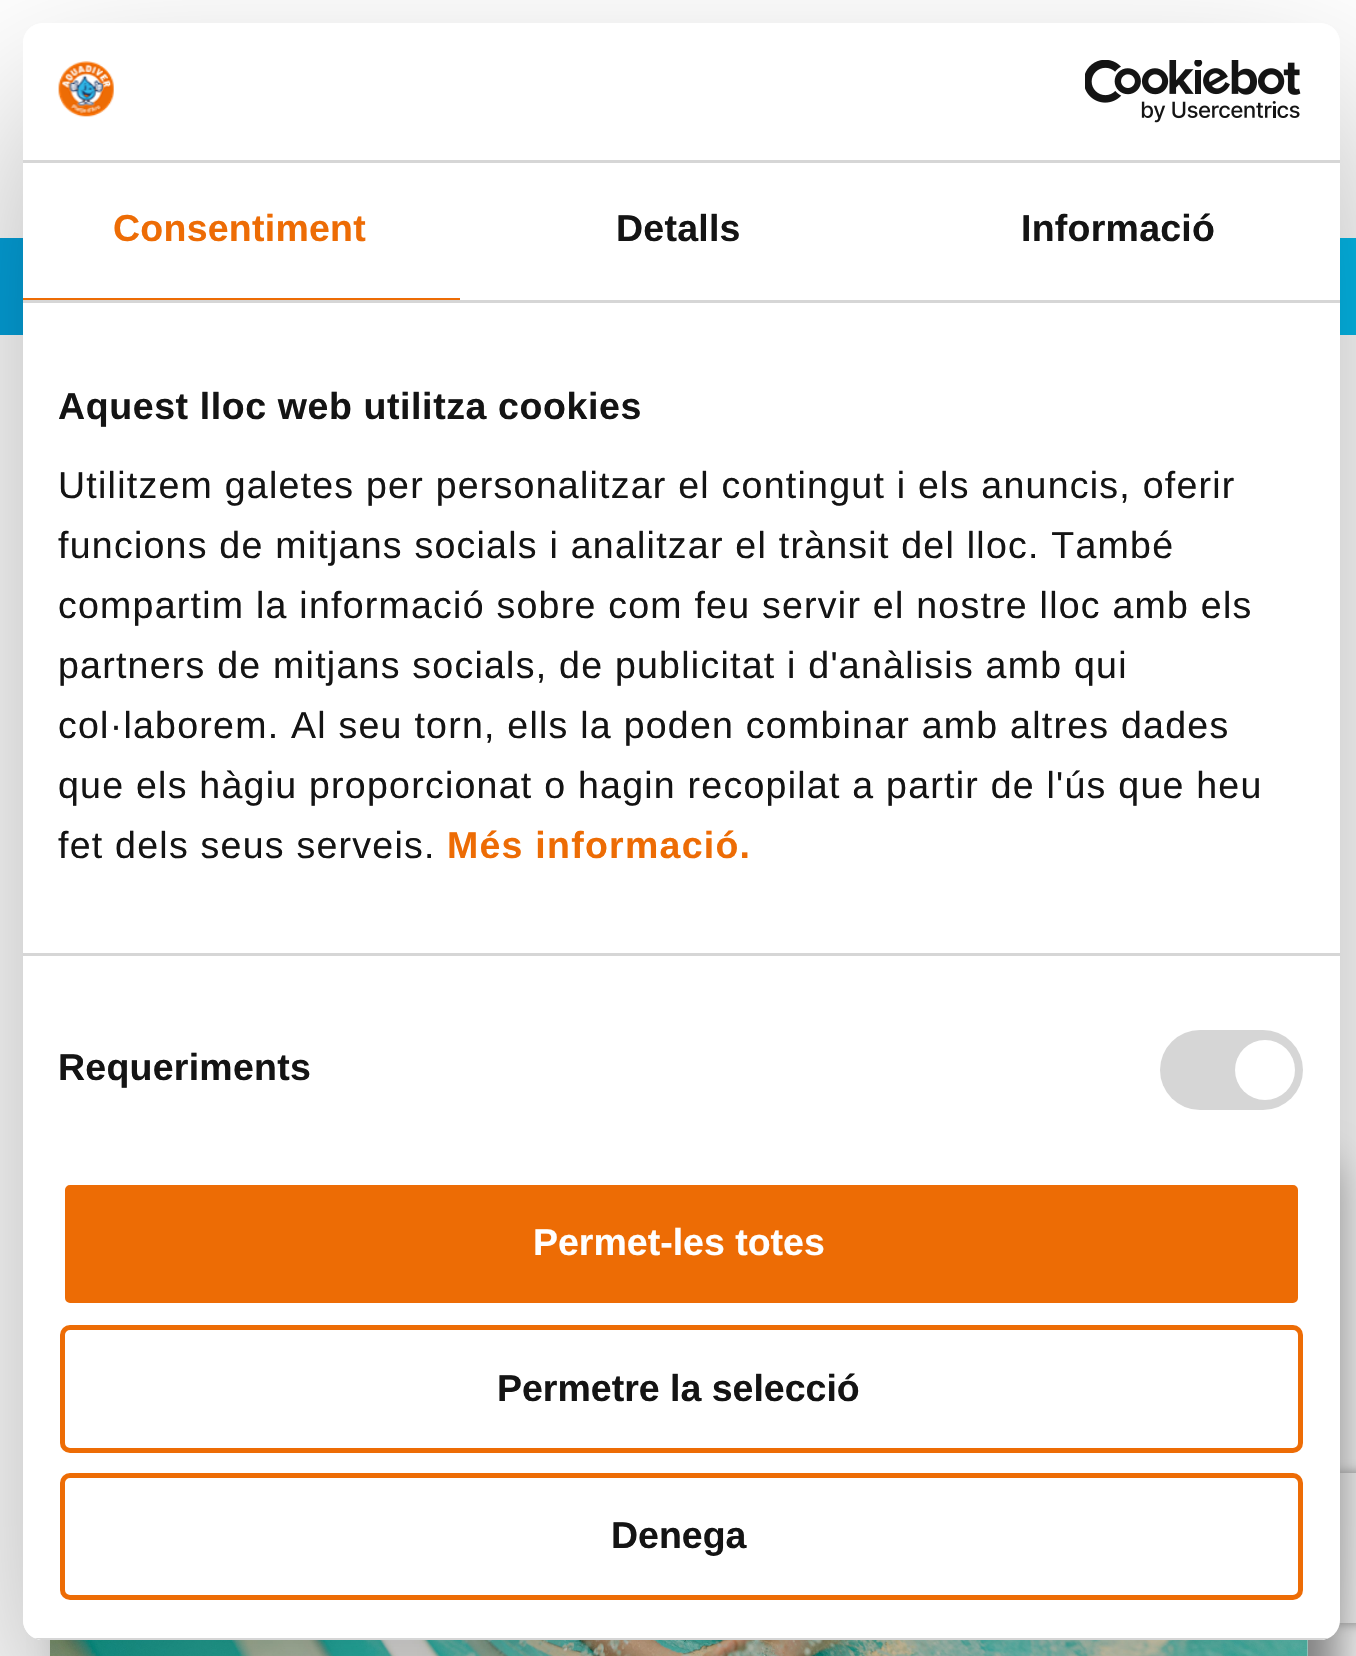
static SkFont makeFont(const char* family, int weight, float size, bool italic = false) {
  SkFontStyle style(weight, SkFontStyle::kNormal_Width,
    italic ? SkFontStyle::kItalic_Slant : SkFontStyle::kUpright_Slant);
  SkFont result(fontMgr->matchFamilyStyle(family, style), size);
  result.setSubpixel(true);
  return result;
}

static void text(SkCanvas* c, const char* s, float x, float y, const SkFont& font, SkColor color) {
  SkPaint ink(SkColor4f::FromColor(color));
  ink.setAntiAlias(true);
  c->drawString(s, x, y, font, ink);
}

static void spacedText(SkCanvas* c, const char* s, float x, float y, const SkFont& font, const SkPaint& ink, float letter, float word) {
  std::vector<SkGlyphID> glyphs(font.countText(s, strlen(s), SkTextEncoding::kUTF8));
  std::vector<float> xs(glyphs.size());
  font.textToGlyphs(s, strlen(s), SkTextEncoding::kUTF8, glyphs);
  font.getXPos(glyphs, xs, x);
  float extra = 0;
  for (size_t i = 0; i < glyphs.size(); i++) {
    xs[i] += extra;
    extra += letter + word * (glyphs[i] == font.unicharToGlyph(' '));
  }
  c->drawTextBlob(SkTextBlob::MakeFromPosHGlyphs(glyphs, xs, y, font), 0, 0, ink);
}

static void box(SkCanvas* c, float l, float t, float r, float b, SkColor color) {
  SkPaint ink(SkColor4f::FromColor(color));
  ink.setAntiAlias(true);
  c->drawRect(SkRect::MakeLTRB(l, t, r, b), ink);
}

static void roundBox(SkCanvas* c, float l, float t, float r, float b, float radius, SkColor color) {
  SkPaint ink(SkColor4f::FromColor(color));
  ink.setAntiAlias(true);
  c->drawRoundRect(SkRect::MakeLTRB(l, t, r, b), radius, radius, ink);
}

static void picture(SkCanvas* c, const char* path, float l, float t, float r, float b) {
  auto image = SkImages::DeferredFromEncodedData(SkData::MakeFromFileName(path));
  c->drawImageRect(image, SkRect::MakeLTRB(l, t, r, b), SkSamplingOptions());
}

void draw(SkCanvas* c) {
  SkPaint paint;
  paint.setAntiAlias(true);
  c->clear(0xffffffff);
  {
    const SkColor colors[] = {0xff03a2dc, 0xff03bbed};
    const float stops[] = {0, 1};
    const SkPoint ends[] = {{0, 286}, {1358, 286}};
    paint.setShader(SkGradientShader::MakeLinear(ends, colors, stops, 2, SkTileMode::kClamp));
    paint.setAlpha(255);
  }
  c->drawRect(SkRect::MakeLTRB(0, 238, 1356, 335), paint);
  picture(c, "img_03.png", 50, 1640, 1308, 1656);
  c->save();
  c->clipPath(SkPathBuilder(SkPathFillType::kEvenOdd).moveTo(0, 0).lineTo(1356, 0).lineTo(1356, 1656).lineTo(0, 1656).close().moveTo(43, 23).lineTo(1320, 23).cubicTo(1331, 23, 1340, 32, 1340, 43).lineTo(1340, 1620).cubicTo(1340, 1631, 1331, 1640, 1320, 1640).lineTo(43, 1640).cubicTo(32, 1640, 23, 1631, 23, 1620).lineTo(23, 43).cubicTo(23, 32, 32, 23, 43, 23).close().detach(), true);
  paint.setShader(nullptr);
  paint.setColor(0x4d000000);
  paint.setMaskFilter(SkMaskFilter::MakeBlur(kNormal_SkBlurStyle, 85));
  c->drawRoundRect(SkRect::MakeLTRB(23, 103, 1340, 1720), 20, 20, paint);
  paint.setMaskFilter(nullptr);
  c->restore();
  c->save();
  c->clipPath(SkPathBuilder(SkPathFillType::kEvenOdd).moveTo(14, 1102).lineTo(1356, 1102).lineTo(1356, 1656).lineTo(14, 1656).close().moveTo(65, 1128).lineTo(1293, 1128).cubicTo(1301.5f, 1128, 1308, 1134.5f, 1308, 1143).lineTo(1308, 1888).cubicTo(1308, 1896.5f, 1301.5f, 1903, 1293, 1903).lineTo(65, 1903).cubicTo(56.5f, 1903, 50, 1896.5f, 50, 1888).lineTo(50, 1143).cubicTo(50, 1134.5f, 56.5f, 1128, 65, 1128).close().detach(), true);
  paint.setColor(0xff808080);
  paint.setMaskFilter(SkMaskFilter::MakeBlur(kNormal_SkBlurStyle, 20));
  c->drawRoundRect(SkRect::MakeLTRB(75, 1163, 1333, 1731), 15, 15, paint);
  paint.setMaskFilter(nullptr);
  c->restore();
  c->save();
  c->clipPath(SkPathBuilder(SkPathFillType::kEvenOdd).moveTo(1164, 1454).lineTo(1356, 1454).lineTo(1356, 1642).lineTo(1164, 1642).close().moveTo(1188, 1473).lineTo(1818, 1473).cubicTo(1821, 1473, 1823, 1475, 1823, 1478).lineTo(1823, 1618).cubicTo(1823, 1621, 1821, 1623, 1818, 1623).lineTo(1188, 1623).cubicTo(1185, 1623, 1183, 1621, 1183, 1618).lineTo(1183, 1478).cubicTo(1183, 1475, 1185, 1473, 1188, 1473).close().detach(), true);
  paint.setMaskFilter(SkMaskFilter::MakeBlur(kNormal_SkBlurStyle, 6));
  c->drawRoundRect(SkRect::MakeLTRB(1183, 1473, 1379, 1623), 5, 5, paint);
  paint.setMaskFilter(nullptr);
  c->restore();
  roundBox(c, 23, 23, 1340, 1640, 20, 0xffffffff);
  box(c, 23, 160, 1340, 163, 0xffd6d6d6);
  picture(c, "img_01.png", 58, 61, 114, 117);
  picture(c, "img_02.png", 1085, 60, 1301, 123);
  box(c, 23, 300, 1340, 303, 0xffd6d6d6);
  box(c, 23, 298, 460, 300, 0xffed6c05);
  SkFont face1 = makeFont("Liberation Sans", 700, 37.5f);
  paint.setColor(0xffed6c05);
  spacedText(c, "Consentiment", 113, 241, face1, paint, 0.25f, 0);
  paint.setColor(0xff141414);
  spacedText(c, "Detalls", 616, 241, face1, paint, 0.25f, 0);
  spacedText(c, "Informació", 1021, 241, face1, paint, 0.25f, 0);
  box(c, 23, 953, 1340, 956, 0xffd6d6d6);
  spacedText(c, "Aquest lloc web utilitza cookies", 58, 419, face1, paint, 0.6f, 0);
  SkFont face2 = makeFont("Liberation Sans", 400, 37.5f);
  spacedText(c, "Utilitzem galetes per personalitzar el contingut i els anuncis, oferir", 58, 498, face2, paint, 1.25f, 0);
  spacedText(c, "funcions de mitjans socials i analitzar el trànsit del lloc. També", 58, 558, face2, paint, 1.25f, 0);
  spacedText(c, "compartim la informació sobre com feu servir el nostre lloc amb els", 58, 618, face2, paint, 1.25f, 0);
  spacedText(c, "partners de mitjans socials, de publicitat i d'anàlisis amb qui", 58, 678, face2, paint, 1.25f, 0);
  spacedText(c, "col·laborem. Al seu torn, ells la poden combinar amb altres dades", 58, 738, face2, paint, 1.25f, 0);
  spacedText(c, "que els hàgiu proporcionat o hagin recopilat a partir de l'ús que heu", 58, 798, face2, paint, 1.25f, 0);
  spacedText(c, "fet dels seus serveis.", 58, 858, face2, paint, 1.25f, 0);
  paint.setColor(0xffed6c05);
  spacedText(c, "Més informació.", 447, 858, face1, paint, 1.25f, 0);
  paint.setColor(0xff141414);
  spacedText(c, "Requeriments", 58, 1080, face1, paint, 0.25f, 0);
  roundBox(c, 1160, 1030, 1303, 1110, 40, 0xffd6d6d6);
  paint.setColor(0xffffffff);
  c->drawCircle(1265, 1070, 30, paint);
  c->save();
  c->clipPath(SkPathBuilder().moveTo(43, 23).lineTo(1320, 23).cubicTo(1331, 23, 1340, 32, 1340, 43).lineTo(1340, 1620).cubicTo(1340, 1631, 1331, 1640, 1320, 1640).lineTo(43, 1640).cubicTo(32, 1640, 23, 1631, 23, 1620).lineTo(23, 43).cubicTo(23, 32, 32, 23, 43, 23).close().detach(), true);
  box(c, 34, 1638, 1329, 1640, 0xffd6d6d6);
  c->restore();
  paint.setColor(0xffed6c05);
  c->drawRoundRect(SkRect::MakeLTRB(62.5f, 1182.5f, 1300.5f, 1305.5f), 7.5f, 7.5f, paint);
  paint.setStyle(SkPaint::kStroke_Style);
  paint.setStrokeWidth(5);
  paint.setColor(0xffffffff);
  c->drawRoundRect(SkRect::MakeLTRB(62.5f, 1182.5f, 1300.5f, 1305.5f), 7.5f, 7.5f, paint);
  text(c, "Permet-les totes", 533, 1255, face1, 0xffffffff);
  paint.setColor(0xffed6c05);
  c->drawRoundRect(SkRect::MakeLTRB(62.5f, 1327.5f, 1300.5f, 1450.5f), 7.5f, 7.5f, paint);
  text(c, "Permetre la selecció", 497, 1401, face1, 0xff141414);
  c->drawRoundRect(SkRect::MakeLTRB(62.5f, 1475.5f, 1300.5f, 1597.5f), 7.5f, 7.5f, paint);
  text(c, "Denega", 611, 1548, face1, 0xff141414);
}
